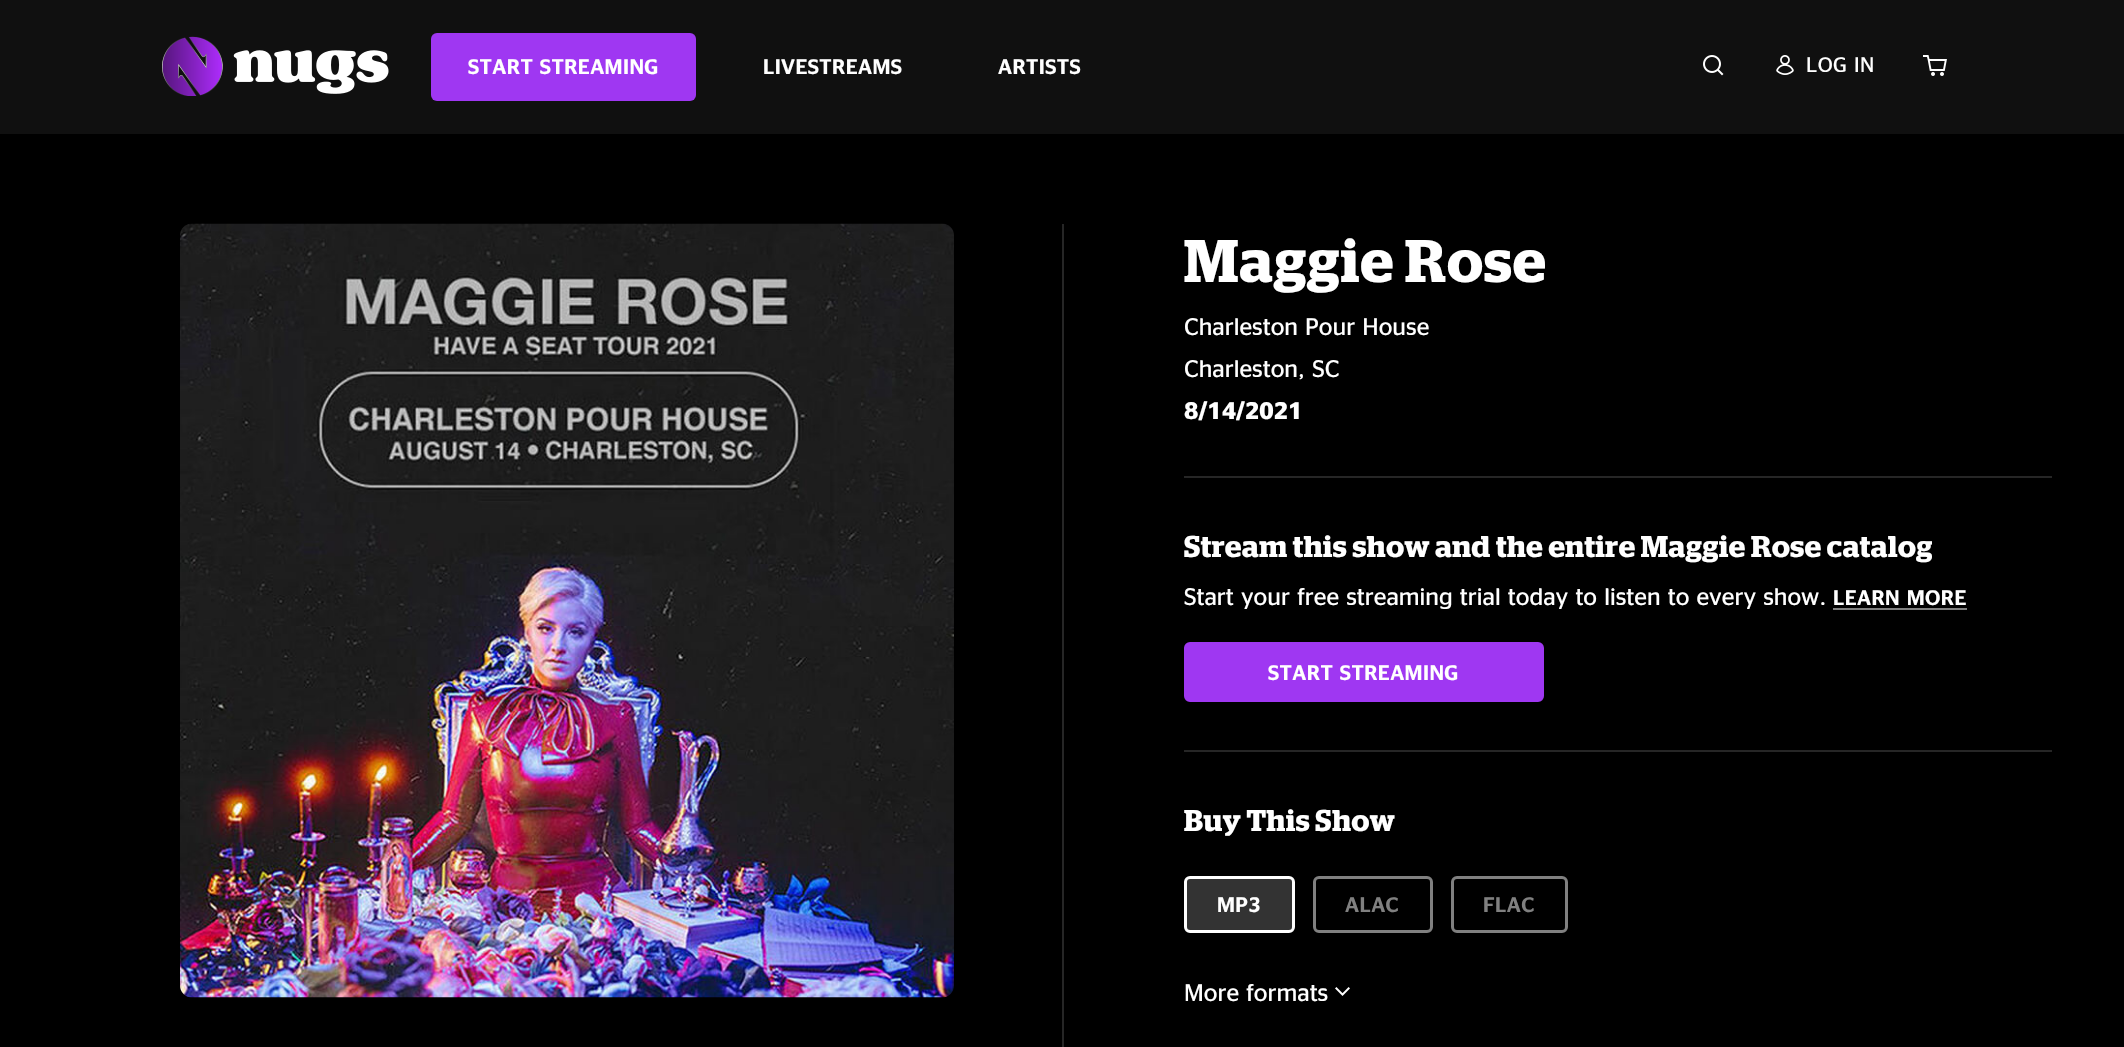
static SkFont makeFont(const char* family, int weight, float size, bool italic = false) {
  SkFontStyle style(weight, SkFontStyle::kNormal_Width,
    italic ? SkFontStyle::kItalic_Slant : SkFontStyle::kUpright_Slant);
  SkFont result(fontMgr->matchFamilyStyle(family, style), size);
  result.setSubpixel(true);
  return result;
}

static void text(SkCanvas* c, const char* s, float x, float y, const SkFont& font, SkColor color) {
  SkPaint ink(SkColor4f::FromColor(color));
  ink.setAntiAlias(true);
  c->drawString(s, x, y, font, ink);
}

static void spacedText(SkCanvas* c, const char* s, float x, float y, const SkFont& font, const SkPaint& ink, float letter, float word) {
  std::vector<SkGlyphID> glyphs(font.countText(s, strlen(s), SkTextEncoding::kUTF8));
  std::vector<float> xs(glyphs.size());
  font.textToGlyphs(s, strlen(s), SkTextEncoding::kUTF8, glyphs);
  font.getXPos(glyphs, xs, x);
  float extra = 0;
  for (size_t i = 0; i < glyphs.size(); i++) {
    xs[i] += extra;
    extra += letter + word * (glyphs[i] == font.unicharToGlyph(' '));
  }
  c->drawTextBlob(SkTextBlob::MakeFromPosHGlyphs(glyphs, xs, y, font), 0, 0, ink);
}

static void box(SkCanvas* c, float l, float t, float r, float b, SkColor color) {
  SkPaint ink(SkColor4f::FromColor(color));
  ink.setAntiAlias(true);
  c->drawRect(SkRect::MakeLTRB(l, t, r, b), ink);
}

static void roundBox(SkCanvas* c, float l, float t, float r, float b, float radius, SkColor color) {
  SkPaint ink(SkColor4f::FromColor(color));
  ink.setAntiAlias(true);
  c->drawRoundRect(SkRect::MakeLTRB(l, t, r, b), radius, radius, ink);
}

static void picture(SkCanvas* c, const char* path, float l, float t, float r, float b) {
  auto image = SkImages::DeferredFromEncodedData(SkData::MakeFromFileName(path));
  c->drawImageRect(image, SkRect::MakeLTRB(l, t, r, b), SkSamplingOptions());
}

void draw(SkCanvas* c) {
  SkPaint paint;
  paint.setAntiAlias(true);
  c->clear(0xff000000);
  box(c, 0, 0, 2124, 134, 0xff101010);
  picture(c, "img_01.png", 162, 36, 389, 96);
  roundBox(c, 431, 33, 696, 101, 6, 0xff9f37f2);
  SkFont face1 = makeFont("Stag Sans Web", 500, 21);
  paint.setColor(0xffffffff);
  spacedText(c, "START STREAMING", 468, 74, face1, paint, 0.4f, 0);
  spacedText(c, "LIVESTREAMS", 763, 74, face1, paint, 0.4f, 0);
  spacedText(c, "ARTISTS", 998, 74, face1, paint, 0.4f, 0);
  picture(c, "img_02.png", 1703, 55, 1724, 76);
  picture(c, "img_03.png", 1776, 55, 1794, 75);
  SkFont face2 = makeFont("Stag Sans Web", 400, 21);
  spacedText(c, "LOG IN", 1806, 72, face2, paint, 0.4f, 0);
  picture(c, "img_04.png", 1923, 55, 1947, 76);
  picture(c, "img_05.png", 180, 223, 954, 998);
  box(c, 1062, 224, 1064, 1047, 0xff262626);
  SkFont face3 = makeFont("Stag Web", 600, 60);
  spacedText(c, "Maggie Rose", 1184, 282, face3, paint, 1.25f, 0);
  SkFont face4 = makeFont("Stag Sans Web", 400, 24);
  text(c, "Charleston Pour House", 1184, 335, face4, 0xffffffff);
  text(c, "Charleston, SC", 1184, 377, face4, 0xffffffff);
  SkFont face5 = makeFont("Stag Sans Web", 600, 24);
  text(c, "8/14/2021", 1184, 419, face5, 0xffffffff);
  box(c, 1184, 750, 2052, 752, 0xff262626);
  box(c, 1184, 476, 2052, 478, 0xff262626);
  SkFont face6 = makeFont("Stag Web", 600, 30);
  spacedText(c, "Stream this show and the entire Maggie Rose catalog", 1184, 557, face6, paint, 0.57f, 0);
  text(c, "Start your free streaming trial today to listen to every show.", 1184, 605, face4, 0xffffffff);
  spacedText(c, "LEARN MORE", 1833, 605, face1, paint, 0.4f, 0);
  box(c, 1833, 608, 1967, 610, 0xff808080);
  paint.setColor(0xff9f37f2);
  c->drawRoundRect(SkRect::MakeLTRB(1185, 643, 1543, 701), 5, 5, paint);
  paint.setStyle(SkPaint::kStroke_Style);
  paint.setStrokeWidth(2);
  c->drawRoundRect(SkRect::MakeLTRB(1185, 643, 1543, 701), 5, 5, paint);
  paint.setStyle(SkPaint::kFill_Style);
  paint.setColor(0xffffffff);
  spacedText(c, "START STREAMING", 1268, 680, face1, paint, 0.4f, 0);
  spacedText(c, "Buy This Show", 1184, 831, face6, paint, 0.57f, 0);
  paint.setColor(0xff333333);
  c->drawRoundRect(SkRect::MakeLTRB(1185.5f, 877.5f, 1293.5f, 931.5f), 4.5f, 4.5f, paint);
  paint.setStyle(SkPaint::kStroke_Style);
  paint.setStrokeWidth(3);
  paint.setColor(0xffffffff);
  c->drawRoundRect(SkRect::MakeLTRB(1185.5f, 877.5f, 1293.5f, 931.5f), 4.5f, 4.5f, paint);
  paint.setStyle(SkPaint::kFill_Style);
  spacedText(c, "MP3", 1217, 912, face1, paint, 0.4f, 0);
  paint.setStyle(SkPaint::kStroke_Style);
  paint.setColor(0xff808080);
  c->drawRoundRect(SkRect::MakeLTRB(1314.5f, 877.5f, 1431.5f, 931.5f), 4.5f, 4.5f, paint);
  paint.setStyle(SkPaint::kFill_Style);
  spacedText(c, "ALAC", 1345, 912, face1, paint, 0.4f, 0);
  paint.setStyle(SkPaint::kStroke_Style);
  c->drawRoundRect(SkRect::MakeLTRB(1452.5f, 877.5f, 1566.5f, 931.5f), 4.5f, 4.5f, paint);
  paint.setStyle(SkPaint::kFill_Style);
  spacedText(c, "FLAC", 1483, 912, face1, paint, 0.4f, 0);
  text(c, "More formats", 1184, 1001, face4, 0xffffffff);
  picture(c, "img_06.png", 1335, 987, 1350, 996);
}
